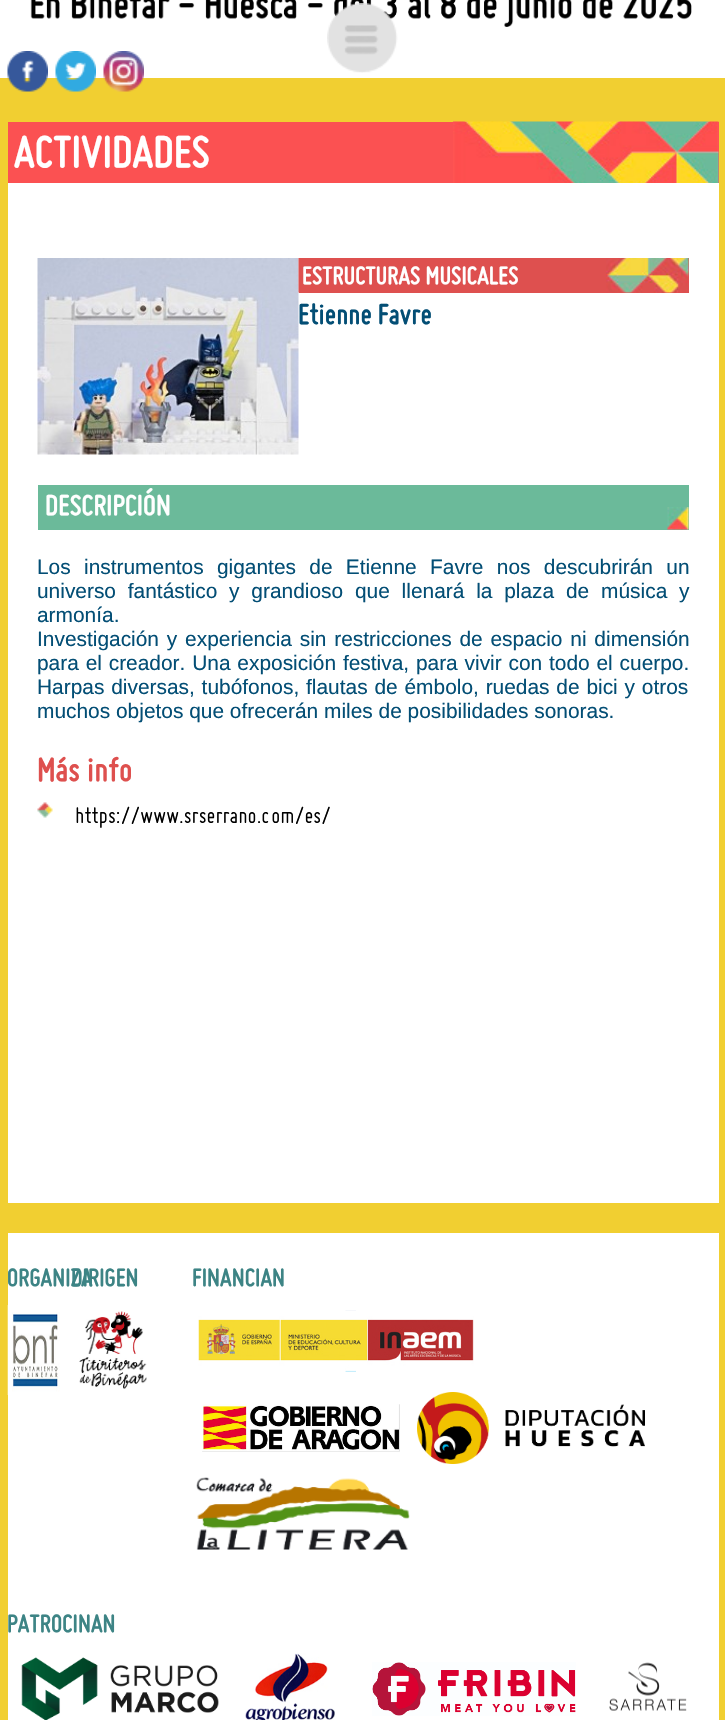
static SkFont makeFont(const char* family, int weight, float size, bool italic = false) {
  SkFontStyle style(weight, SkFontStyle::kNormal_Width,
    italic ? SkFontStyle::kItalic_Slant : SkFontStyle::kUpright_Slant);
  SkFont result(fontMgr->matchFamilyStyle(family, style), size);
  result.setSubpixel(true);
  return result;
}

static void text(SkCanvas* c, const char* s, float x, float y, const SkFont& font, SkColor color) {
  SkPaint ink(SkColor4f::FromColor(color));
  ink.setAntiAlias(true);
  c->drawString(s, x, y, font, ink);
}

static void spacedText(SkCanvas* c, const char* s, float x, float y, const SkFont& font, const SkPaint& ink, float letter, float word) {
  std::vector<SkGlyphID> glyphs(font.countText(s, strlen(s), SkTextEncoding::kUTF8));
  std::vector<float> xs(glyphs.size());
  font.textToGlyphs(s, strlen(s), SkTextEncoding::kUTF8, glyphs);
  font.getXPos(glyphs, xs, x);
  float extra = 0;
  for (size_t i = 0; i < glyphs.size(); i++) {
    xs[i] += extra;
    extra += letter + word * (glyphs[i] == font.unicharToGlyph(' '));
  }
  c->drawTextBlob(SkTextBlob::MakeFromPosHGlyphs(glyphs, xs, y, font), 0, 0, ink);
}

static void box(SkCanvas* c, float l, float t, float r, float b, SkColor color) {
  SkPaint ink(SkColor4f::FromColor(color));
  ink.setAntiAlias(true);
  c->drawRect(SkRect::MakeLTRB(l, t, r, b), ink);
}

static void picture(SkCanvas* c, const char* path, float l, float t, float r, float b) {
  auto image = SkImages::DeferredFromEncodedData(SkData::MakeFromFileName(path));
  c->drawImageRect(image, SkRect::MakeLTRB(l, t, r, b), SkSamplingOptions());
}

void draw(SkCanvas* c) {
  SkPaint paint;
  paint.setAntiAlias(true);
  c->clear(0xfff1cf31);
  box(c, 0, 0, 725, 78, 0xffffffff);
  picture(c, "img_01.png", 30, 0, 692, 27);
  picture(c, "img_02.png", 7, 51, 48, 92);
  picture(c, "img_03.png", 55, 51, 96, 92);
  picture(c, "img_04.png", 103, 51, 144, 92);
  picture(c, "img_05.png", 327, 3, 398, 73);
  box(c, 8, 122, 719, 183, 0xfffb5152);
  picture(c, "img_06.png", 453, 121, 719, 183);
  SkFont face1 = makeFont("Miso", 700, 48, true);
  text(c, "ACTIVIDADES", 14, 167, face1, 0xffffffff);
  box(c, 8, 183, 719, 1203, 0xffffffff);
  picture(c, "img_07.png", 37, 258, 299, 455);
  box(c, 299, 258, 689, 293, 0xffde504f);
  picture(c, "img_08.png", 298, 258, 689, 293);
  SkFont face2 = makeFont("Miso", 700, 27, true);
  text(c, "ESTRUCTURAS MUSICALES", 302, 284, face2, 0xffffffff);
  SkFont face3 = makeFont("Miso", 700, 31, true);
  text(c, "Etienne Favre", 298, 324, face3, 0xff034e75);
  box(c, 38, 485, 689, 530, 0xff6bba9a);
  picture(c, "img_09.png", 667, 507, 689, 530);
  text(c, "DESCRIPCIÓN", 45, 515, face3, 0xffffffff);
  SkFont face4 = makeFont("Liberation Sans", 400, 20.9f);
  paint.setColor(0xff034e75);
  spacedText(c, "Los instrumentos gigantes de Etienne Favre nos descubrirán un", 37, 574, face4, paint, 0, 7.5f);
  spacedText(c, "universo fantástico y grandioso que llenará la plaza de música y", 37, 598, face4, paint, 0, 6);
  text(c, "armonía.", 37, 622, face4, 0xff034e75);
  spacedText(c, "Investigación y experiencia sin restricciones de espacio ni dimensión", 37, 646, face4, paint, 0, 2);
  spacedText(c, "para el creador. Una exposición festiva, para vivir con todo el cuerpo.", 37, 670, face4, paint, 0, 1);
  spacedText(c, "Harpas diversas, tubófonos, flautas de émbolo, ruedas de bici y otros", 37, 694, face4, paint, 0, 1);
  text(c, "muchos objetos que ofrecerán miles de posibilidades sonoras.", 37, 718, face4, 0xff034e75);
  SkFont face5 = makeFont("Miso", 700, 36, true);
  text(c, "Más info", 37, 781, face5, 0xffde504e);
  picture(c, "img_10.png", 37, 802, 53, 818);
  SkFont face6 = makeFont("Miso", 400, 24, true);
  text(c, "https://www.srserrano.com/es/", 75, 823, face6, 0xff000000);
  box(c, 8, 1233, 719, 1720, 0xffffffff);
  text(c, "ORGANIZA", 7, 1286, face2, 0xff3d8485);
  picture(c, "img_11.png", 7, 1305, 60, 1395);
  text(c, "DIRIGEN", 71, 1286, face2, 0xff3d8485);
  picture(c, "img_12.png", 79, 1311, 147, 1389);
  text(c, "FINANCIAN", 192, 1286, face2, 0xff3d8485);
  picture(c, "img_13.png", 198, 1310, 474, 1372);
  picture(c, "img_14.png", 202, 1404, 400, 1452);
  picture(c, "img_15.png", 417, 1392, 645, 1464);
  picture(c, "img_16.png", 196, 1477, 410, 1550);
  text(c, "PATROCINAN", 7, 1632, face2, 0xff3d8485);
  picture(c, "img_17.png", 21, 1657, 219, 1720);
  picture(c, "img_18.png", 245, 1653, 335, 1720);
  picture(c, "img_19.png", 372, 1662, 576, 1716);
  picture(c, "img_20.png", 609, 1662, 687, 1711);
}
